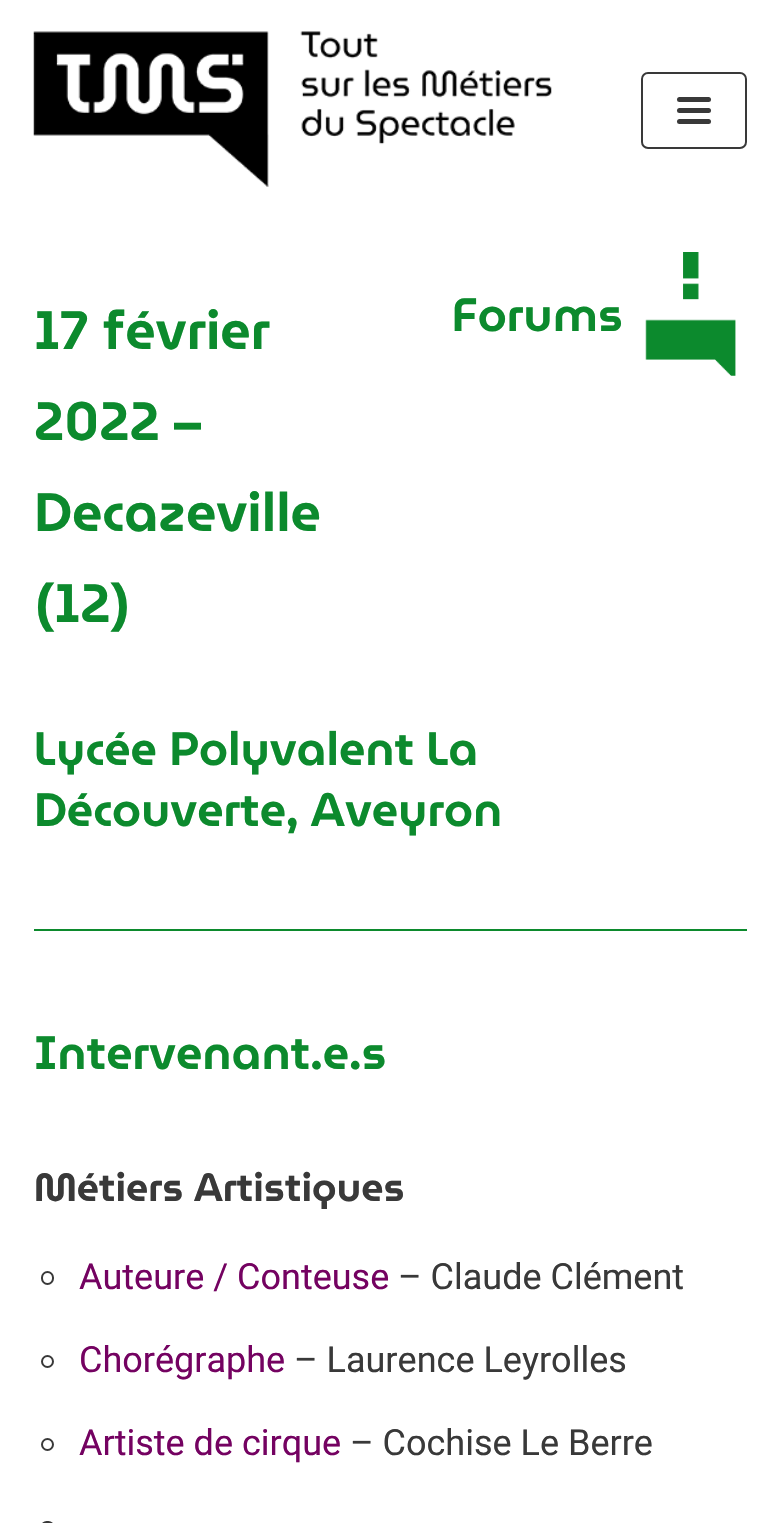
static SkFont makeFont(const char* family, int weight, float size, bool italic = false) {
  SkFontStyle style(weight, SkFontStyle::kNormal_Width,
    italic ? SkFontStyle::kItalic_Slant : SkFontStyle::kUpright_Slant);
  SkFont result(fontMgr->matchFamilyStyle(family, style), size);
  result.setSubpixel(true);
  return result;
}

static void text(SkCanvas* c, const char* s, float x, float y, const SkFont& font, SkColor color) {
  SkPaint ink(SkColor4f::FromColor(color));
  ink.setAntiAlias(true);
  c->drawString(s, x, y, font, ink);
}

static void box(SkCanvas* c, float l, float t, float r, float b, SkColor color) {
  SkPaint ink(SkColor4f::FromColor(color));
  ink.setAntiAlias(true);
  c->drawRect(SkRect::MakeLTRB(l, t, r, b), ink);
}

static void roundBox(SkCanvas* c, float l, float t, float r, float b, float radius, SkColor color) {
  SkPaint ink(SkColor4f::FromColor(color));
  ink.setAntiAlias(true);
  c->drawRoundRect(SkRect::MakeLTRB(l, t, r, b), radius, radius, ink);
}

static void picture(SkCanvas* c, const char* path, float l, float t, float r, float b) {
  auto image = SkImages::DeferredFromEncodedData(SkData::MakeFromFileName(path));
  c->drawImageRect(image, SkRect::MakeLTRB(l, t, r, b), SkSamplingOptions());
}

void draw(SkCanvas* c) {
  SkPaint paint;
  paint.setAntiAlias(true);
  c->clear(0xffffffff);
  picture(c, "img_01.png", 33, 31, 552, 187);
  paint.setStyle(SkPaint::kStroke_Style);
  paint.setStrokeWidth(2);
  paint.setColor(0xff393939);
  c->drawRoundRect(SkRect::MakeLTRB(642, 73, 746, 148), 6, 6, paint);
  roundBox(c, 677, 97, 711, 102, 2.5f, 0xff393939);
  roundBox(c, 677, 108, 711, 113, 2.5f, 0xff393939);
  roundBox(c, 677, 119, 711, 124, 2.5f, 0xff393939);
  picture(c, "img_02.png", 645, 252, 736, 376);
  SkFont face1 = makeFont("MuseoModerno", 600, 46.75f);
  text(c, "Forums", 452, 331, face1, 0xff0c8a2d);
  text(c, "Lycée Polyvalent La", 34, 765, face1, 0xff0c8a2d);
  text(c, "Découverte, Aveyron", 34, 826, face1, 0xff0c8a2d);
  box(c, 34, 929, 747, 931, 0xff0c8a2d);
  text(c, "Intervenant.e.s", 34, 1069, face1, 0xff0c8a2d);
  SkFont face2 = makeFont("MuseoModerno", 600, 39.5f);
  text(c, "Métiers Artistiques", 34, 1201, face2, 0xff393939);
  c->drawRoundRect(SkRect::MakeLTRB(42, 1272, 53, 1284), 5.5f, 5.5f, paint);
  SkFont face3 = makeFont("Roboto", 400, 36);
  text(c, "Auteure / Conteuse", 79, 1289, face3, 0xff740261);
  text(c, "– Claude Clément", 398, 1289, face3, 0xff393939);
  c->drawCircle(47.5f, 1361.5f, 5.5f, paint);
  text(c, "Chorégraphe", 79, 1372, face3, 0xff740261);
  text(c, "– Laurence Leyrolles", 294, 1372, face3, 0xff393939);
  c->drawCircle(47.5f, 1444.5f, 5.5f, paint);
  text(c, "Artiste de cirque", 79, 1455, face3, 0xff740261);
  text(c, "– Cochise Le Berre", 350, 1455, face3, 0xff393939);
  c->drawRoundRect(SkRect::MakeLTRB(42, 1522, 53, 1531), 5.5f, 5.5f, paint);
  SkFont face4 = makeFont("MuseoModerno", 600, 54);
  text(c, "17 février", 34, 349, face4, 0xff0c8a2d);
  text(c, "2022 –", 34, 440, face4, 0xff0c8a2d);
  text(c, "Decazeville", 34, 531, face4, 0xff0c8a2d);
  text(c, "(12)", 34, 622, face4, 0xff0c8a2d);
}
